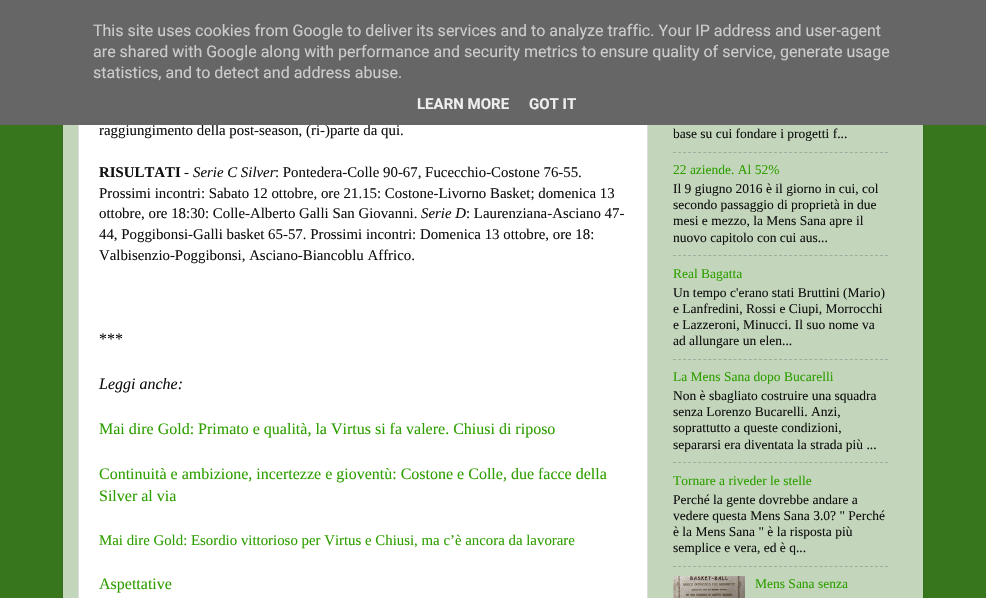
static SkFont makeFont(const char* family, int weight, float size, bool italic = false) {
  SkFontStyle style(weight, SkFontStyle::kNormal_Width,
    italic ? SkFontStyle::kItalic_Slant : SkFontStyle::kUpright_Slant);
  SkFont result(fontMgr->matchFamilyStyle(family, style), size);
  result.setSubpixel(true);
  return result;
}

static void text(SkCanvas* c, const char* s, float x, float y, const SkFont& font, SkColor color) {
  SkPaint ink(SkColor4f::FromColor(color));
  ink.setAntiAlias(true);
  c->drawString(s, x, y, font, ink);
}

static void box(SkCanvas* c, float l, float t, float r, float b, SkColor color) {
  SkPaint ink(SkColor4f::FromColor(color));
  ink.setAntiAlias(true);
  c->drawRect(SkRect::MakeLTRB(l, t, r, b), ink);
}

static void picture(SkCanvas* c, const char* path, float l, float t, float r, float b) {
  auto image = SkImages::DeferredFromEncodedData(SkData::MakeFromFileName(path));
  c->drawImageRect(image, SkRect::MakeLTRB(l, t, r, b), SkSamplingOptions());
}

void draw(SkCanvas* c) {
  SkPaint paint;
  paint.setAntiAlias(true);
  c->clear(0xff38761d);
  paint.setColor(0x26000000);
  paint.setMaskFilter(SkMaskFilter::MakeBlur(kNormal_SkBlurStyle, 1.5f));
  c->drawRoundRect(SkRect::MakeLTRB(63, -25, 923, 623), 20, 20, paint);
  paint.setMaskFilter(nullptr);
  box(c, 63, 125, 923, 598, 0xffc3d6bb);
  box(c, 79, 125, 647, 598, 0xffffffff);
  paint.setStyle(SkPaint::kStroke_Style);
  paint.setStrokeWidth(1);
  paint.setColor(0xffdddddd);
  c->drawRect(SkRect::MakeLTRB(78.5f, -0.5f, 647.5f, 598.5f), paint);
  SkFont face1 = makeFont("Liberation Serif", 400, 14.85f);
  text(c, "raggiungimento della post-season, (ri-)parte da qui.", 99, 135, face1, 0xff111111);
  box(c, 0, 0, 986, 125, 0xff666666);
  SkFont face2 = makeFont("Roboto", 400, 16);
  text(c, "This site uses cookies from Google to deliver its services and to analyze traffic. Your IP address and user-agent", 93, 36, face2, 0xffcccccc);
  text(c, "are shared with Google along with performance and security metrics to ensure quality of service, generate usage", 93, 57, face2, 0xffcccccc);
  text(c, "statistics, and to detect and address abuse.", 93, 78, face2, 0xffcccccc);
  SkFont face3 = makeFont("Roboto", 700, 15);
  text(c, "LEARN MORE", 417, 109, face3, 0xffeeeeee);
  text(c, "GOT IT", 529, 109, face3, 0xffeeeeee);
  SkFont face4 = makeFont("Liberation Serif", 700, 14.85f);
  text(c, "RISULTATI", 99, 177, face4, 0xff111111);
  text(c, "-", 184, 177, face1, 0xff111111);
  SkFont face5 = makeFont("Liberation Serif", 400, 14.85f, true);
  text(c, "Serie C Silver", 193, 177, face5, 0xff111111);
  text(c, ": Pontedera-Colle 90-67, Fucecchio-Costone 76-55.", 275, 177, face1, 0xff111111);
  text(c, "Prossimi incontri: Sabato 12 ottobre, ore 21.15: Costone-Livorno Basket; domenica 13", 99, 198, face1, 0xff111111);
  text(c, "ottobre, ore 18:30: Colle-Alberto Galli San Giovanni.", 99, 218, face1, 0xff111111);
  text(c, "Serie D", 421, 218, face5, 0xff111111);
  text(c, ": Laurenziana-Asciano 47-", 466, 218, face1, 0xff111111);
  text(c, "44, Poggibonsi-Galli basket 65-57. Prossimi incontri: Domenica 13 ottobre, ore 18:", 99, 239, face1, 0xff111111);
  text(c, "Valbisenzio-Poggibonsi, Asciano-Biancoblu Affrico.", 99, 260, face1, 0xff111111);
  SkFont face6 = makeFont("Liberation Serif", 400, 16);
  text(c, "***", 99, 344, face6, 0xff111111);
  SkFont face7 = makeFont("Liberation Serif", 400, 16, true);
  text(c, "Leggi anche:", 99, 389, face7, 0xff111111);
  text(c, "Mai dire Gold: Primato e qualità, la Virtus si fa valere. Chiusi di riposo", 99, 434, face6, 0xff2e9f00);
  text(c, "Continuità e ambizione, incertezze e gioventù: Costone e Colle, due facce della", 99, 479, face6, 0xff2e9f00);
  text(c, "Silver al via", 99, 501, face6, 0xff2e9f00);
  text(c, "Mai dire Gold: Esordio vittorioso per Virtus e Chiusi, ma c’è ancora da lavorare", 99, 545, face1, 0xff2e9f00);
  text(c, "Aspettative", 99, 589, face6, 0xff2e9f00);
  SkFont face8 = makeFont("Liberation Serif", 400, 13.5f);
  text(c, "base su cui fondare i progetti f...", 673, 138, face8, 0xff111111);
  paint.setColor(0xffa2ab9e);
  paint.setPathEffect(SkDashPathEffect::Make({{3, 2.05f}}, 0));
  c->drawPath(SkPathBuilder().moveTo(673, 152.5f).lineTo(888, 152.5f).detach(), paint);
  paint.setPathEffect(nullptr);
  text(c, "22 aziende. Al 52%", 673, 174, face8, 0xff2e9f00);
  text(c, "Il 9 giugno 2016 è il giorno in cui, col", 673, 193, face8, 0xff111111);
  text(c, "secondo passaggio di proprietà in due", 673, 209, face8, 0xff111111);
  text(c, "mesi e mezzo, la Mens Sana apre il", 673, 225, face8, 0xff111111);
  text(c, "nuovo capitolo con cui aus...", 673, 242, face8, 0xff111111);
  paint.setPathEffect(SkDashPathEffect::Make({{3, 2.05f}}, 0));
  c->drawPath(SkPathBuilder().moveTo(673, 255.5f).lineTo(888, 255.5f).detach(), paint);
  paint.setPathEffect(nullptr);
  text(c, "Real Bagatta", 673, 278, face8, 0xff2e9f00);
  text(c, "Un tempo c'erano stati Bruttini (Mario)", 673, 297, face8, 0xff111111);
  text(c, "e Lanfredini, Rossi e Ciupi, Morrocchi", 673, 313, face8, 0xff111111);
  text(c, "e Lazzeroni, Minucci. Il suo nome va", 673, 329, face8, 0xff111111);
  text(c, "ad allungare un elen...", 673, 345, face8, 0xff111111);
  paint.setPathEffect(SkDashPathEffect::Make({{3, 2.05f}}, 0));
  c->drawPath(SkPathBuilder().moveTo(673, 359.5f).lineTo(888, 359.5f).detach(), paint);
  paint.setPathEffect(nullptr);
  text(c, "La Mens Sana dopo Bucarelli", 673, 381, face8, 0xff2e9f00);
  text(c, "Non è sbagliato costruire una squadra", 673, 400, face8, 0xff111111);
  text(c, "senza Lorenzo Bucarelli. Anzi,", 673, 416, face8, 0xff111111);
  text(c, "soprattutto a queste condizioni,", 673, 432, face8, 0xff111111);
  text(c, "separarsi era diventata la strada più ...", 673, 449, face8, 0xff111111);
  paint.setPathEffect(SkDashPathEffect::Make({{3, 2.05f}}, 0));
  c->drawPath(SkPathBuilder().moveTo(673, 462.5f).lineTo(888, 462.5f).detach(), paint);
  paint.setPathEffect(nullptr);
  text(c, "Tornare a riveder le stelle", 673, 485, face8, 0xff2e9f00);
  text(c, "Perché la gente dovrebbe andare a", 673, 504, face8, 0xff111111);
  text(c, "vedere questa Mens Sana 3.0? \" Perché", 673, 520, face8, 0xff111111);
  text(c, "è la Mens Sana \" è la risposta più", 673, 536, face8, 0xff111111);
  text(c, "semplice e vera, ed è q...", 673, 552, face8, 0xff111111);
  paint.setPathEffect(SkDashPathEffect::Make({{3, 2.05f}}, 0));
  c->drawPath(SkPathBuilder().moveTo(673, 566.5f).lineTo(888, 566.5f).detach(), paint);
  paint.setPathEffect(nullptr);
  picture(c, "img_01.png", 673, 576, 745, 598);
  text(c, "Mens Sana senza", 755, 588, face8, 0xff2e9f00);
}
